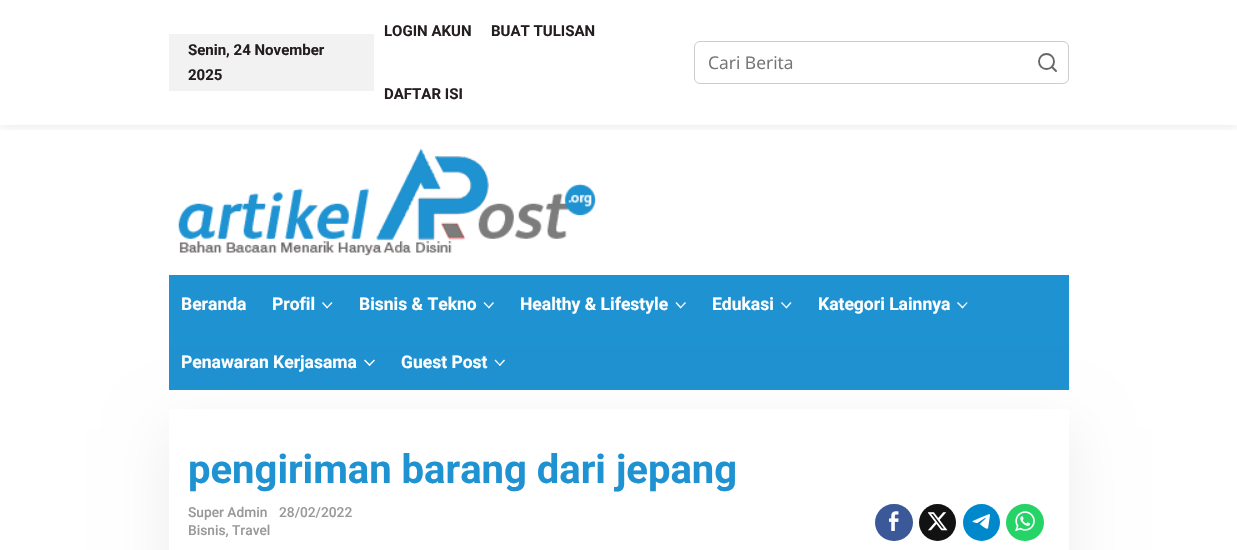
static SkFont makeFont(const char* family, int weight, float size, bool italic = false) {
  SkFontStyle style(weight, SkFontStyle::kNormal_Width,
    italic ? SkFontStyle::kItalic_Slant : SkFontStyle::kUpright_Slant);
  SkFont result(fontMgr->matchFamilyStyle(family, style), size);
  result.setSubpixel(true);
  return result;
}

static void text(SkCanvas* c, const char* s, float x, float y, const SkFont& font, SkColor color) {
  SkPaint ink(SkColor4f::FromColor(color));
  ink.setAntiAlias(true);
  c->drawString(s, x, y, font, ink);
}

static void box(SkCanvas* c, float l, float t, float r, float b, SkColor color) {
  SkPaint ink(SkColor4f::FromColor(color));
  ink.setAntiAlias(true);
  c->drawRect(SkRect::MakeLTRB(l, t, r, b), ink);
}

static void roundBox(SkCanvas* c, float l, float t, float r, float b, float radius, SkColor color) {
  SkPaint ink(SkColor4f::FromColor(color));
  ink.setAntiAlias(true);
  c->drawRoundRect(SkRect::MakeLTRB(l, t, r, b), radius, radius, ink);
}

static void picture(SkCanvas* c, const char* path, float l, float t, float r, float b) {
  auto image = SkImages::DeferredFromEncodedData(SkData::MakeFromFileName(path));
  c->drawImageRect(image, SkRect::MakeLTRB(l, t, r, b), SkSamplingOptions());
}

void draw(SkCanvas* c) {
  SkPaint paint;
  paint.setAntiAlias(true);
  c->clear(0xffffffff);
  c->save();
  c->clipRect(SkRect::MakeLTRB(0, 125, 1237, 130));
  paint.setColor(0x1a000000);
  paint.setMaskFilter(SkMaskFilter::MakeBlur(kNormal_SkBlurStyle, 6));
  c->drawRect(SkRect::MakeLTRB(0, 0, 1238, 125), paint);
  paint.setMaskFilter(nullptr);
  c->restore();
  box(c, 169, 34, 374, 91, 0xfff2f2f2);
  SkFont face1 = makeFont("Roboto", 700, 15);
  text(c, "Senin, 24 November", 188, 55, face1, 0xff241e20);
  text(c, "2025", 188, 80, face1, 0xff241e20);
  text(c, "LOGIN AKUN", 384, 36, face1, 0xff241e20);
  text(c, "BUAT TULISAN", 491, 36, face1, 0xff241e20);
  text(c, "DAFTAR ISI", 384, 99, face1, 0xff241e20);
  paint.setStyle(SkPaint::kStroke_Style);
  paint.setStrokeWidth(1);
  paint.setColor(0xffcccccc);
  c->drawRoundRect(SkRect::MakeLTRB(694.5f, 41.5f, 1068.5f, 83.5f), 5.5f, 5.5f, paint);
  SkFont face2 = makeFont("Open Sans", 400, 17.5f);
  text(c, "Cari Berita", 708, 69, face2, 0xff757575);
  paint.setStrokeWidth(1.9f);
  paint.setColor(0xff666666);
  c->drawCircle(1046.5f, 61.5f, 7.5f, paint);
  paint.setStrokeCap(SkPaint::kRound_Cap);
  paint.setStrokeJoin(SkPaint::kRound_Join);
  c->drawPath(SkPathBuilder().moveTo(1056, 71).lineTo(1052, 67).detach(), paint);
  picture(c, "img_01.png", 178, 148, 596, 256);
  box(c, 169, 275, 1069, 390, 0xff1f92d1);
  SkFont face3 = makeFont("Roboto", 700, 17.5f);
  text(c, "Beranda", 181, 310, face3, 0xffffffff);
  text(c, "Profil", 272, 310, face3, 0xffffffff);
  paint.setStyle(SkPaint::kFill_Style);
  paint.setColor(0xffffffff);
  c->drawPath(SkPathBuilder().moveTo(331.5f, 302).lineTo(332.5f, 303).lineTo(327, 308.5f).lineTo(326.5f, 307.5f).close().detach(), paint);
  c->drawPath(SkPathBuilder().moveTo(323, 302).lineTo(328, 307.5f).lineTo(327, 308.5f).lineTo(322, 303).close().detach(), paint);
  text(c, "Bisnis & Tekno", 359, 310, face3, 0xffffffff);
  c->drawPath(SkPathBuilder().moveTo(493, 302).lineTo(494, 303).lineTo(489, 308.5f).lineTo(488, 307.5f).close().detach(), paint);
  c->drawPath(SkPathBuilder().moveTo(484.5f, 302).lineTo(489.5f, 307.5f).lineTo(489, 308.5f).lineTo(483.5f, 303).close().detach(), paint);
  text(c, "Healthy & Lifestyle", 520, 310, face3, 0xffffffff);
  c->drawPath(SkPathBuilder().moveTo(685, 302).lineTo(686, 303).lineTo(680.5f, 308.5f).lineTo(680, 307.5f).close().detach(), paint);
  c->drawPath(SkPathBuilder().moveTo(676.5f, 302).lineTo(681.5f, 307.5f).lineTo(680.5f, 308.5f).lineTo(675.5f, 303).close().detach(), paint);
  text(c, "Edukasi", 712, 310, face3, 0xffffffff);
  c->drawPath(SkPathBuilder().moveTo(790.5f, 302).lineTo(791.5f, 303).lineTo(786.5f, 308.5f).lineTo(785.5f, 307.5f).close().detach(), paint);
  c->drawPath(SkPathBuilder().moveTo(782, 302).lineTo(787, 307.5f).lineTo(786.5f, 308.5f).lineTo(781, 303).close().detach(), paint);
  text(c, "Kategori Lainnya", 818, 310, face3, 0xffffffff);
  c->drawPath(SkPathBuilder().moveTo(967, 302).lineTo(967.5f, 303).lineTo(962.5f, 308.5f).lineTo(961.5f, 307.5f).close().detach(), paint);
  c->drawPath(SkPathBuilder().moveTo(958, 302).lineTo(963.5f, 307.5f).lineTo(962.5f, 308.5f).lineTo(957, 303).close().detach(), paint);
  text(c, "Penawaran Kerjasama", 181, 368, face3, 0xffffffff);
  c->drawPath(SkPathBuilder().moveTo(374, 359.5f).lineTo(375, 360.5f).lineTo(369.5f, 366).lineTo(368.5f, 365).close().detach(), paint);
  c->drawPath(SkPathBuilder().moveTo(365, 359.5f).lineTo(370.5f, 365).lineTo(369.5f, 366).lineTo(364, 360.5f).close().detach(), paint);
  text(c, "Guest Post", 401, 368, face3, 0xffffffff);
  c->drawPath(SkPathBuilder().moveTo(504, 359.5f).lineTo(505, 360.5f).lineTo(500, 366).lineTo(499, 365).close().detach(), paint);
  c->drawPath(SkPathBuilder().moveTo(495.5f, 359.5f).lineTo(500.5f, 365).lineTo(500, 366).lineTo(494.5f, 360.5f).close().detach(), paint);
  paint.setColor(0x12000000);
  paint.setMaskFilter(SkMaskFilter::MakeBlur(kNormal_SkBlurStyle, 28));
  c->drawRect(SkRect::MakeLTRB(169, 429, 1069, 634), paint);
  paint.setMaskFilter(nullptr);
  box(c, 169, 409, 1069, 550, 0xffffffff);
  SkFont face4 = makeFont("Roboto", 700, 40);
  text(c, "pengiriman barang dari jepang", 188, 483, face4, 0xff1f92d1);
  SkFont face5 = makeFont("Roboto", 500, 13.75f);
  text(c, "Super Admin", 188, 517, face5, 0xff999999);
  text(c, "28/02/2022", 279, 517, face5, 0xff999999);
  text(c, "Bisnis, Travel", 188, 535, face5, 0xff999999);
  roundBox(c, 875, 504, 913, 541, 18.5f, 0xff3b5998);
  picture(c, "img_02.png", 889, 511, 899, 531);
  paint.setColor(0xff121212);
  c->drawCircle(937.5f, 522.5f, 18.5f, paint);
  picture(c, "img_03.png", 928, 512, 948, 531);
  paint.setColor(0xff0088cc);
  c->drawCircle(981.5f, 522.5f, 18.5f, paint);
  picture(c, "img_04.png", 972, 514, 990, 529);
  roundBox(c, 1006, 504, 1044, 541, 18.5f, 0xff25d366);
  picture(c, "img_05.png", 1015, 511, 1035, 531);
}
